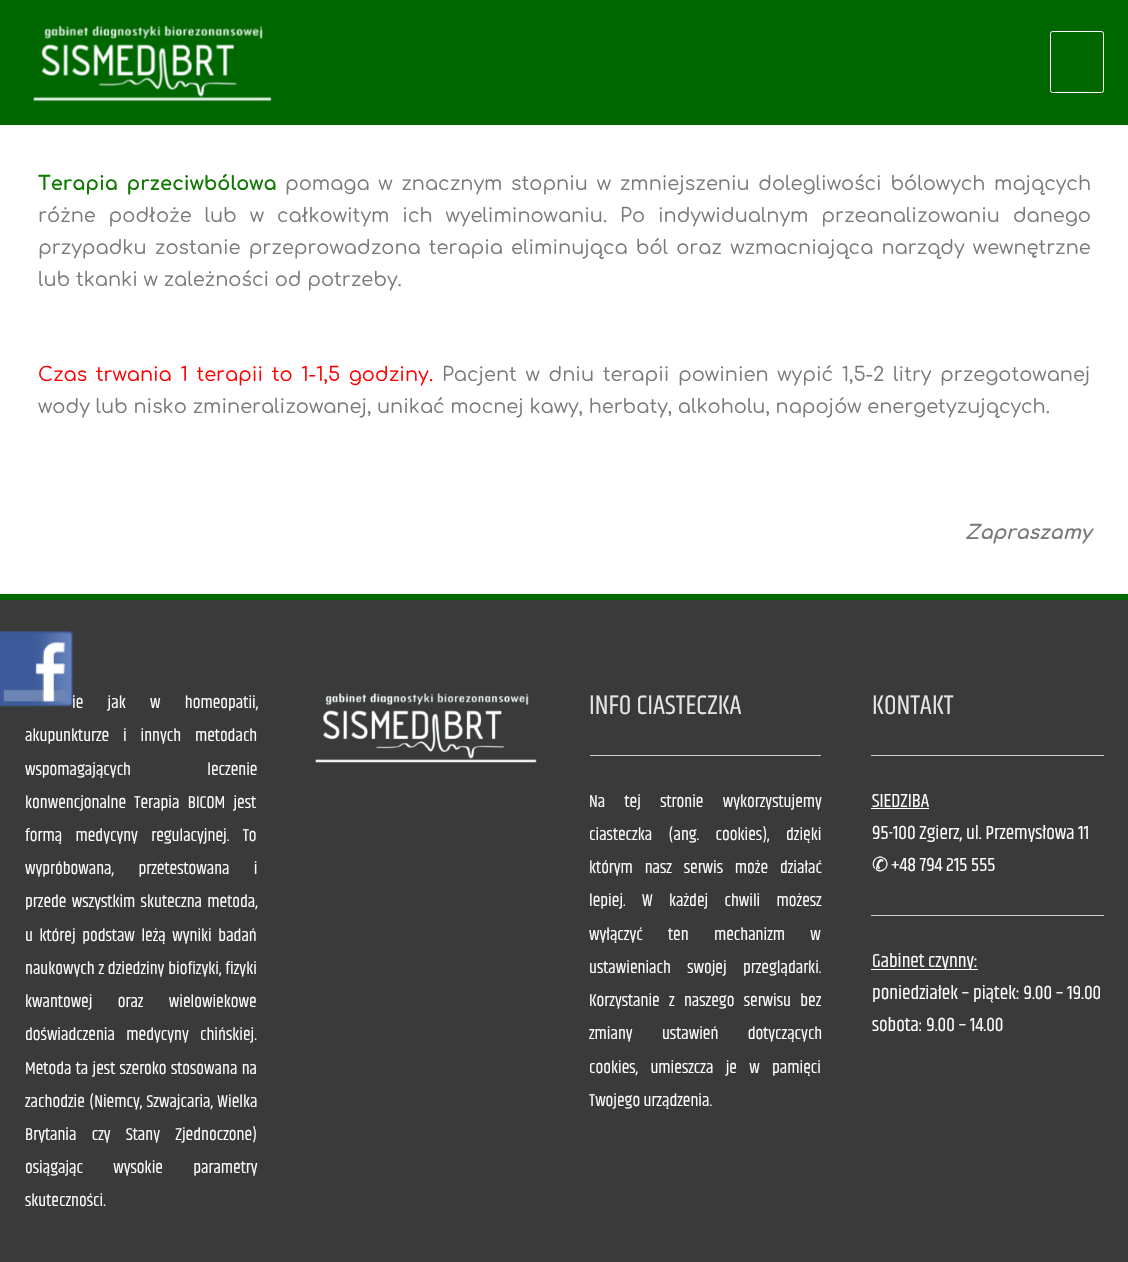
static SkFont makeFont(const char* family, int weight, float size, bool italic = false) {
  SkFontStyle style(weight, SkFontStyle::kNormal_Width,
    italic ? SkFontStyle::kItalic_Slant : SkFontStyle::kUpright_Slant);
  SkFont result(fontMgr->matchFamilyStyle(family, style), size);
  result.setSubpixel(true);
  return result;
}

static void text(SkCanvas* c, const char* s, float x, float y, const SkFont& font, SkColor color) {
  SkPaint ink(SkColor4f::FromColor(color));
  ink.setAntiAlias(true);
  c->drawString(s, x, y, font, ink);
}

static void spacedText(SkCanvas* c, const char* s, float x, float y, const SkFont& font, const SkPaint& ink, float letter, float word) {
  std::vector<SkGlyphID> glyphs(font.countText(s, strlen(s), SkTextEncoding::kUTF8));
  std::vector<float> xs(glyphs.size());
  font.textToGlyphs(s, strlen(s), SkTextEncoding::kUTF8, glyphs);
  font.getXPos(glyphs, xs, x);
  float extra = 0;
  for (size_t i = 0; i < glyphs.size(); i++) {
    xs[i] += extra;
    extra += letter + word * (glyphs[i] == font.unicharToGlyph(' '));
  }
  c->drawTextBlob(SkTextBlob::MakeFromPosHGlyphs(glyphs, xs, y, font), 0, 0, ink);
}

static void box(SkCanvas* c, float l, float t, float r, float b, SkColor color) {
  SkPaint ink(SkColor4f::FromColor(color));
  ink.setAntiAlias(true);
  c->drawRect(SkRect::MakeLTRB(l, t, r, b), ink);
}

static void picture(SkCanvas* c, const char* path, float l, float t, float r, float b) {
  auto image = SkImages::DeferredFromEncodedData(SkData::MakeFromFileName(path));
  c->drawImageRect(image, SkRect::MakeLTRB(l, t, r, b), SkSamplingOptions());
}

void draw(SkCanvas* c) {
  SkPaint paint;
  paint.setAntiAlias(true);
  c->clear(0xffffffff);
  box(c, 0, 0, 1128, 125, 0xff006600);
  picture(c, "img_01.png", 33, 25, 272, 102);
  paint.setStyle(SkPaint::kStroke_Style);
  paint.setStrokeWidth(1);
  paint.setColor(0xffffffff);
  c->drawRoundRect(SkRect::MakeLTRB(1050.5f, 31.5f, 1103.5f, 92.5f), 2, 2, paint);
  SkFont face1 = makeFont("Comfortaa", 700, 19.38f);
  paint.setStyle(SkPaint::kFill_Style);
  paint.setColor(0xff0f7901);
  spacedText(c, "Terapia przeciwbólowa", 38, 190, face1, paint, 0, 3);
  SkFont face2 = makeFont("Comfortaa", 400, 19.38f);
  paint.setColor(0xff7a7a7a);
  spacedText(c, "pomaga w znacznym stopniu w zmniejszeniu dolegliwości bólowych mających", 285, 190, face2, paint, 0, 3);
  spacedText(c, "różne podłoże lub w całkowitym ich wyeliminowaniu. Po indywidualnym przeanalizowaniu danego", 38, 222, face2, paint, 0, 7.25f);
  spacedText(c, "przypadku zostanie przeprowadzona terapia eliminująca ból oraz wzmacniająca narządy wewnętrzne", 38, 254, face2, paint, 0, 2.5f);
  text(c, "lub tkanki w zależności od potrzeby.", 38, 286, face2, 0xff7a7a7a);
  paint.setColor(0xffff0000);
  spacedText(c, "Czas trwania 1 terapii to 1-1,5 godziny", 38, 381, face2, paint, 0, 3);
  text(c, ".", 429, 381, face2, 0xffff0000);
  paint.setColor(0xff7a7a7a);
  spacedText(c, "Pacjent w dniu terapii powinien wypić 1,5-2 litry przegotowanej", 442, 381, face2, paint, 0, 3);
  text(c, "wody lub nisko zmineralizowanej, unikać mocnej kawy, herbaty, alkoholu, napojów energetyzujących.", 38, 413, face2, 0xff7a7a7a);
  SkFont face3 = makeFont("Comfortaa", 700, 19.38f, true);
  text(c, "Zapraszamy", 965, 539, face3, 0xff7a7a7a);
  box(c, 0, 600, 1128, 1262, 0xff3a3a3a);
  box(c, 0, 594, 1128, 600, 0xff006600);
  SkFont face4 = makeFont("Khand", 400, 17.5f);
  paint.setColor(0xffffffff);
  spacedText(c, "ie jak w homeopatii,", 72, 708, face4, paint, 0, 21);
  spacedText(c, "akupunkturze i innych metodach", 25, 741, face4, paint, 0, 10.5f);
  spacedText(c, "wspomagających leczenie", 25, 775, face4, paint, 0, 73);
  spacedText(c, "konwencjonalne Terapia BICOM jest", 25, 808, face4, paint, 0, 5);
  spacedText(c, "formą medycyny regulacyjnej. To", 25, 841, face4, paint, 0, 10);
  spacedText(c, "wypróbowana, przetestowana i", 25, 874, face4, paint, 0, 21);
  spacedText(c, "przede wszystkim skuteczna metoda,", 25, 907, face4, paint, 0, 2);
  spacedText(c, "u której podstaw leżą wyniki badań", 25, 941, face4, paint, 0, 3.25f);
  spacedText(c, "naukowych z dziedziny biofizyki, fizyki", 25, 974, face4, paint, 0, 0.5f);
  spacedText(c, "kwantowej oraz wielowiekowe", 25, 1007, face4, paint, 0, 22);
  spacedText(c, "doświadczenia medycyny chińskiej.", 25, 1040, face4, paint, 0, 8);
  spacedText(c, "Metoda ta jest szeroko stosowana na", 25, 1074, face4, paint, 0, 1);
  spacedText(c, "zachodzie (Niemcy, Szwajcaria, Wielka", 25, 1107, face4, paint, 0, 1);
  spacedText(c, "Brytania czy Stany Zjednoczone)", 25, 1140, face4, paint, 0, 12);
  spacedText(c, "osiągając wysokie parametry", 25, 1173, face4, paint, 0, 27);
  text(c, "skuteczności.", 25, 1206, face4, 0xffffffff);
  picture(c, "img_02.png", 315, 693, 537, 763);
  SkFont face5 = makeFont("Khand", 400, 27.5f);
  text(c, "INFO CIASTECZKA", 589, 714, face5, 0xffe5e5e5);
  box(c, 590, 755, 821, 756, 0xffcccccc);
  spacedText(c, "Na tej stronie wykorzystujemy", 589, 807, face4, paint, 0, 16);
  spacedText(c, "ciasteczka (ang. cookies), dzięki", 589, 840, face4, paint, 0, 13);
  spacedText(c, "którym nasz serwis może działać", 589, 873, face4, paint, 0, 8.5f);
  spacedText(c, "lepiej. W każdej chwili możesz", 589, 906, face4, paint, 0, 13);
  spacedText(c, "wyłączyć ten mechanizm w", 589, 940, face4, paint, 0, 22);
  spacedText(c, "ustawieniach swojej przeglądarki.", 589, 973, face4, paint, 0, 13);
  spacedText(c, "Korzystanie z naszego serwisu bez", 589, 1006, face4, paint, 0, 6);
  spacedText(c, "zmiany ustawień dotyczących", 589, 1039, face4, paint, 0, 26);
  spacedText(c, "cookies, umieszcza je w pamięci", 589, 1073, face4, paint, 0, 9);
  text(c, "Twojego urządzenia.", 589, 1106, face4, 0xffffffff);
  text(c, "KONTAKT", 872, 714, face5, 0xffe5e5e5);
  box(c, 871, 755, 1104, 756, 0xffcccccc);
  SkFont face6 = makeFont("Khand", 400, 19.38f);
  text(c, "SIEDZIBA", 872, 807, face6, 0xffffffff);
  box(c, 871, 808, 929, 809, 0xffffffff);
  text(c, "95-100 Zgierz, ul. Przemysłowa 11", 872, 839, face6, 0xffffffff);
  SkFont face7 = makeFont("DejaVu Sans", 400, 19.38f);
  text(c, "✆", 872, 871, face7, 0xffffffff);
  text(c, "+48 794 215 555", 891, 871, face6, 0xffffffff);
  box(c, 871, 915, 1104, 916, 0xffcccccc);
  box(c, 871, 969, 978, 970, 0xffffffff);
  text(c, "Gabinet czynny:", 872, 967, face6, 0xffffffff);
  text(c, "poniedziałek – piątek: 9.00 – 19.00", 872, 999, face6, 0xffffffff);
  text(c, "sobota: 9.00 – 14.00", 872, 1031, face6, 0xffffffff);
  picture(c, "img_03.png", 0, 631, 73, 707);
}
